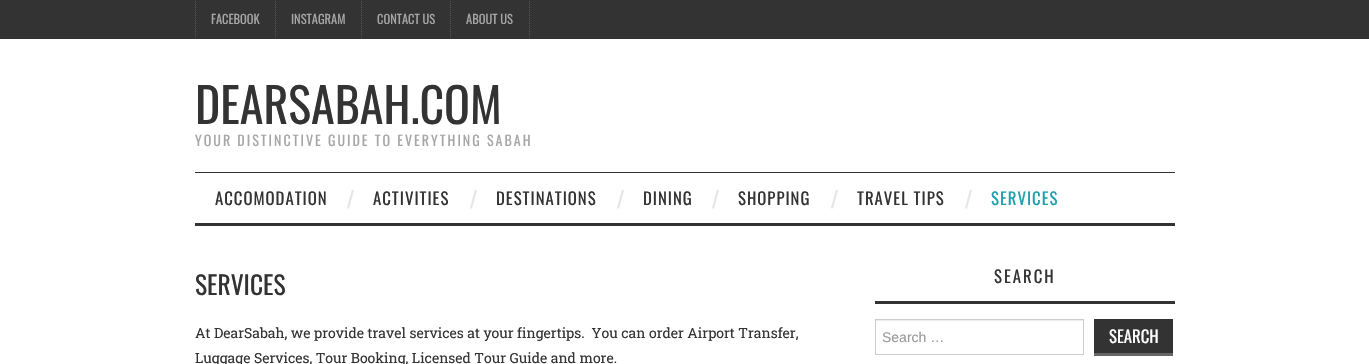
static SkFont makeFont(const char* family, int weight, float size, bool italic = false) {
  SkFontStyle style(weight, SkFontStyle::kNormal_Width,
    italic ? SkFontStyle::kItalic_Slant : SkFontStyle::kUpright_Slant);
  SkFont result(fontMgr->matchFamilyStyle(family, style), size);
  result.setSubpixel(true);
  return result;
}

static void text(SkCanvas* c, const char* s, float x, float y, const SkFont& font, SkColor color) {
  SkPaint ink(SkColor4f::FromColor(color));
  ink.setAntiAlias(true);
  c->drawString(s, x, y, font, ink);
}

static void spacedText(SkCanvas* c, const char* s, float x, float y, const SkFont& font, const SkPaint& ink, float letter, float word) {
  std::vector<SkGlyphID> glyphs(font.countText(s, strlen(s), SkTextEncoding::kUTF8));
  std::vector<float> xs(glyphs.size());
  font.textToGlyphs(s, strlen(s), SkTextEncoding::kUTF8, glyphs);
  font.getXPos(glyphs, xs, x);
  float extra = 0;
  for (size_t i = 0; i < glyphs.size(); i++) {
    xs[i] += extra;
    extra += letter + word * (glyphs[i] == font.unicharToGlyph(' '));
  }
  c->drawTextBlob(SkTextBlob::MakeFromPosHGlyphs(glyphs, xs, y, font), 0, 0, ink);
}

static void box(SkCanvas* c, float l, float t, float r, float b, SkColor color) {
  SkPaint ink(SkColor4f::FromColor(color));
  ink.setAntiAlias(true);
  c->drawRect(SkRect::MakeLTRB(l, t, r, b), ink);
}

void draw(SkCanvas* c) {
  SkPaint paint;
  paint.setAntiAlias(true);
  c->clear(0xffffffff);
  box(c, 0, 0, 1369, 39, 0xff333333);
  paint.setStyle(SkPaint::kStroke_Style);
  paint.setStrokeWidth(1);
  paint.setColor(0xff565656);
  paint.setPathEffect(SkDashPathEffect::Make({{1, 1}}, 0));
  c->drawPath(SkPathBuilder().moveTo(195.5f, -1).lineTo(195.5f, 39).detach(), paint);
  paint.setPathEffect(nullptr);
  paint.setPathEffect(SkDashPathEffect::Make({{1, 1}}, 0));
  c->drawPath(SkPathBuilder().moveTo(275.5f, -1).lineTo(275.5f, 39).detach(), paint);
  paint.setPathEffect(nullptr);
  SkFont face1 = makeFont("Oswald", 400, 12.5f);
  text(c, "FACEBOOK", 211, 24, face1, 0xffa6a6a6);
  paint.setPathEffect(SkDashPathEffect::Make({{1, 1}}, 0));
  c->drawPath(SkPathBuilder().moveTo(361.5f, -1).lineTo(361.5f, 39).detach(), paint);
  paint.setPathEffect(nullptr);
  text(c, "INSTAGRAM", 291, 24, face1, 0xffa6a6a6);
  paint.setPathEffect(SkDashPathEffect::Make({{1, 1}}, 0));
  c->drawPath(SkPathBuilder().moveTo(450.5f, -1).lineTo(450.5f, 39).detach(), paint);
  paint.setPathEffect(nullptr);
  text(c, "CONTACT US", 377, 24, face1, 0xffa6a6a6);
  paint.setPathEffect(SkDashPathEffect::Make({{1, 1}}, 0));
  c->drawPath(SkPathBuilder().moveTo(529.5f, -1).lineTo(529.5f, 39).detach(), paint);
  paint.setPathEffect(nullptr);
  text(c, "ABOUT US", 466, 24, face1, 0xffa6a6a6);
  SkFont face2 = makeFont("Oswald", 400, 48);
  text(c, "DEARSABAH.COM", 195, 124, face2, 0xff333333);
  SkFont face3 = makeFont("Oswald", 400, 14);
  paint.setStyle(SkPaint::kFill_Style);
  paint.setColor(0xffa6a6a6);
  spacedText(c, "YOUR DISTINCTIVE GUIDE TO EVERYTHING SABAH", 195, 146, face3, paint, 2, 0);
  box(c, 195, 172, 1175, 173, 0xff333333);
  box(c, 195, 223, 1175, 226, 0xff333333);
  SkFont face4 = makeFont("Oswald", 400, 16.75f);
  paint.setColor(0xff333333);
  spacedText(c, "ACCOMODATION", 215, 205, face4, paint, 1, 0);
  SkFont face5 = makeFont("Liberation Sans", 400, 25);
  text(c, "/", 347, 208, face5, 0xffe6e6e6);
  spacedText(c, "ACTIVITIES", 373, 205, face4, paint, 1, 0);
  text(c, "/", 470, 208, face5, 0xffe6e6e6);
  spacedText(c, "DESTINATIONS", 496, 205, face4, paint, 1, 0);
  text(c, "/", 617, 208, face5, 0xffe6e6e6);
  spacedText(c, "DINING", 643, 205, face4, paint, 1, 0);
  text(c, "/", 712, 208, face5, 0xffe6e6e6);
  spacedText(c, "SHOPPING", 738, 205, face4, paint, 1, 0);
  text(c, "/", 831, 208, face5, 0xffe6e6e6);
  spacedText(c, "TRAVEL TIPS", 857, 205, face4, paint, 1, 0);
  text(c, "/", 965, 208, face5, 0xffe6e6e6);
  paint.setColor(0xff1fa0ae);
  spacedText(c, "SERVICES", 991, 205, face4, paint, 1, 0);
  SkFont face6 = makeFont("Oswald", 400, 25.5f);
  text(c, "SERVICES", 195, 295, face6, 0xff333333);
  SkFont face7 = makeFont("Roboto Slab", 400, 14);
  text(c, "At DearSabah, we provide travel services at your fingertips.  You can order Airport Transfer,", 195, 338, face7, 0xff333333);
  text(c, "Luggage Services, Tour Booking, Licensed Tour Guide and more.", 195, 363, face7, 0xff333333);
  box(c, 875, 301, 1175, 304, 0xff333333);
  paint.setColor(0xff333333);
  spacedText(c, "SEARCH", 994, 283, face4, paint, 2, 0);
  box(c, 876, 320, 1083, 321, 0xffececec);
  paint.setStyle(SkPaint::kStroke_Style);
  paint.setColor(0xffcccccc);
  c->drawRect(SkRect::MakeLTRB(875.5f, 319.5f, 1083.5f, 354.5f), paint);
  SkFont face8 = makeFont("Liberation Sans", 400, 14);
  text(c, "Search …", 882, 342, face8, 0xff999999);
  box(c, 1094, 319, 1173, 353, 0xff333333);
  box(c, 1094, 353, 1173, 356, 0xff666666);
  text(c, "SEARCH", 1109, 343, face4, 0xffffffff);
}
